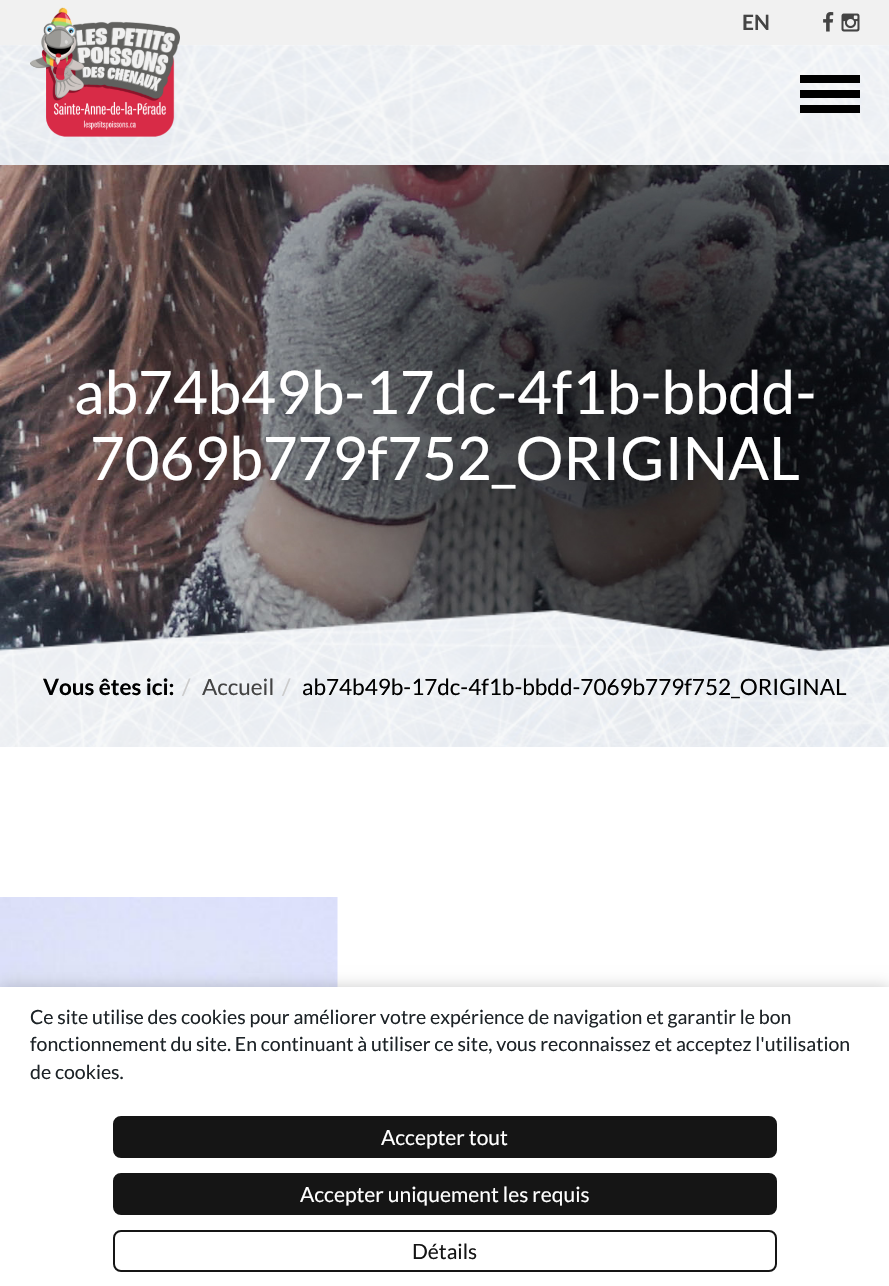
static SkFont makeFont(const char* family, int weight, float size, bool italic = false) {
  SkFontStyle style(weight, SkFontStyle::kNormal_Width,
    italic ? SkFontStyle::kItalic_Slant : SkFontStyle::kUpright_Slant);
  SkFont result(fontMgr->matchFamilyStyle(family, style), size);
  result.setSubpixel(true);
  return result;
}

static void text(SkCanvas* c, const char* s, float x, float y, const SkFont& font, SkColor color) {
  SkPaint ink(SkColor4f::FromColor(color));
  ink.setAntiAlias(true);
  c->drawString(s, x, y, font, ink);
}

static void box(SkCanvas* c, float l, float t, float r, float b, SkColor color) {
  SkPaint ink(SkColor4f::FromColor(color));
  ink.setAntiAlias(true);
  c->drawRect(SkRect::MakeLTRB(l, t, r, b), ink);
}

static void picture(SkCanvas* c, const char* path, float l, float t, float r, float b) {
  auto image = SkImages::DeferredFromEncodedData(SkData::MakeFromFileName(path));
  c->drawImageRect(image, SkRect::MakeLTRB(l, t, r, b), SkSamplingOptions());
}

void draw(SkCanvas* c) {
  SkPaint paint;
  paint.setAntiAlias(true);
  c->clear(0xffffffff);
  picture(c, "img_01.png", 0, 45, 889, 165);
  box(c, 0, 0, 889, 45, 0xfff1f1f1);
  picture(c, "img_02.png", 30, 7, 180, 137);
  box(c, 800, 75, 860, 83, 0xff000000);
  box(c, 800, 90, 860, 98, 0xff000000);
  box(c, 800, 105, 860, 113, 0xff000000);
  SkFont face1 = makeFont("Lato", 700, 21);
  text(c, "EN", 742, 30, face1, 0xff444444);
  picture(c, "img_03.png", 823, 12, 834, 32);
  picture(c, "img_04.png", 841, 13, 860, 32);
  picture(c, "img_05.png", 0, 165, 889, 652);
  SkFont face2 = makeFont("Lato", 400, 60);
  text(c, "ab74b49b-17dc-4f1b-bbdd-", 74, 414, face2, 0xffffffff);
  text(c, "7069b779f752_ORIGINAL", 90, 480, face2, 0xffffffff);
  picture(c, "img_06.png", 0, 610, 889, 747);
  SkFont face3 = makeFont("Lato", 700, 22.5f);
  text(c, "Vous êtes ici:", 43, 695, face3, 0xff000000);
  SkFont face4 = makeFont("Lato", 400, 22.5f);
  text(c, "/", 182, 695, face4, 0xffcccccc);
  text(c, "Accueil", 202, 695, face4, 0xff444444);
  text(c, "/", 282, 695, face4, 0xffcccccc);
  text(c, "ab74b49b-17dc-4f1b-bbdd-7069b779f752_ORIGINAL", 302, 695, face4, 0xff000000);
  picture(c, "img_07.png", 0, 897, 338, 987);
  paint.setColor(0x33000000);
  paint.setMaskFilter(SkMaskFilter::MakeBlur(kNormal_SkBlurStyle, 7.5f));
  c->drawRect(SkRect::MakeLTRB(0, 987, 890, 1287), paint);
  paint.setMaskFilter(nullptr);
  box(c, 0, 987, 889, 1286, 0xffffffff);
  SkFont face5 = makeFont("Lato", 400, 19.5f);
  text(c, "Ce site utilise des cookies pour améliorer votre expérience de navigation et garantir le bon", 30, 1024, face5, 0xff1d2327);
  text(c, "fonctionnement du site. En continuant à utiliser ce site, vous reconnaissez et acceptez l'utilisation", 30, 1051, face5, 0xff1d2327);
  text(c, "de cookies.", 30, 1079, face5, 0xff1d2327);
  paint.setColor(0xff151515);
  c->drawRoundRect(SkRect::MakeLTRB(114, 1117, 776, 1157), 7, 7, paint);
  paint.setStyle(SkPaint::kStroke_Style);
  paint.setStrokeWidth(2);
  c->drawRoundRect(SkRect::MakeLTRB(114, 1117, 776, 1157), 7, 7, paint);
  SkFont face6 = makeFont("Lato", 400, 21);
  text(c, "Accepter tout", 381, 1145, face6, 0xffffffff);
  paint.setStyle(SkPaint::kFill_Style);
  c->drawRoundRect(SkRect::MakeLTRB(114, 1174, 776, 1214), 7, 7, paint);
  paint.setStyle(SkPaint::kStroke_Style);
  c->drawRoundRect(SkRect::MakeLTRB(114, 1174, 776, 1214), 7, 7, paint);
  text(c, "Accepter uniquement les requis", 300, 1202, face6, 0xffffffff);
  c->drawRoundRect(SkRect::MakeLTRB(114, 1231, 776, 1271), 7, 7, paint);
  text(c, "Détails", 412, 1259, face6, 0xff151515);
}
